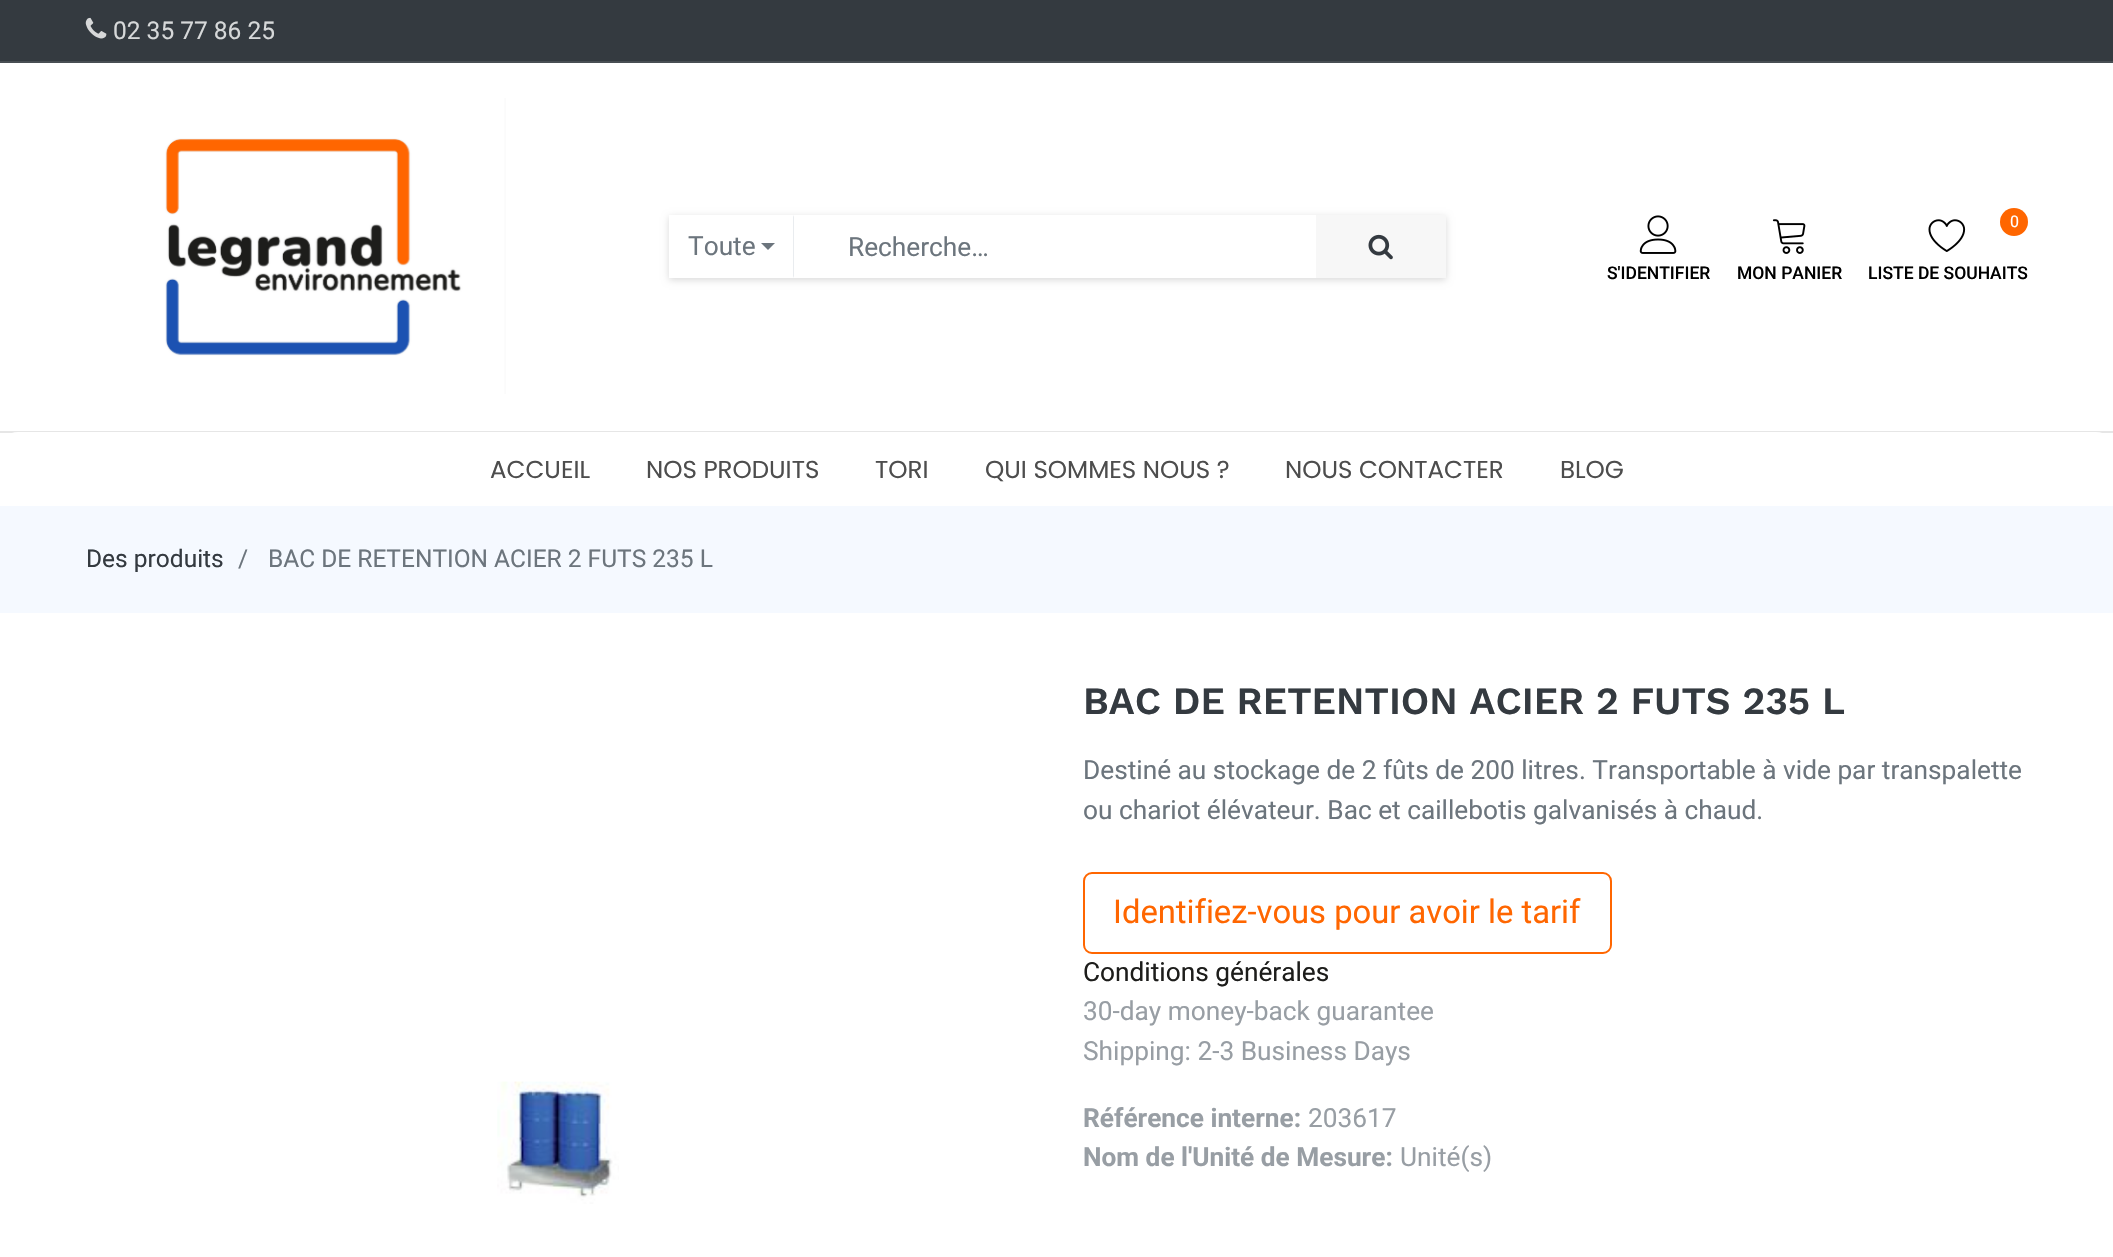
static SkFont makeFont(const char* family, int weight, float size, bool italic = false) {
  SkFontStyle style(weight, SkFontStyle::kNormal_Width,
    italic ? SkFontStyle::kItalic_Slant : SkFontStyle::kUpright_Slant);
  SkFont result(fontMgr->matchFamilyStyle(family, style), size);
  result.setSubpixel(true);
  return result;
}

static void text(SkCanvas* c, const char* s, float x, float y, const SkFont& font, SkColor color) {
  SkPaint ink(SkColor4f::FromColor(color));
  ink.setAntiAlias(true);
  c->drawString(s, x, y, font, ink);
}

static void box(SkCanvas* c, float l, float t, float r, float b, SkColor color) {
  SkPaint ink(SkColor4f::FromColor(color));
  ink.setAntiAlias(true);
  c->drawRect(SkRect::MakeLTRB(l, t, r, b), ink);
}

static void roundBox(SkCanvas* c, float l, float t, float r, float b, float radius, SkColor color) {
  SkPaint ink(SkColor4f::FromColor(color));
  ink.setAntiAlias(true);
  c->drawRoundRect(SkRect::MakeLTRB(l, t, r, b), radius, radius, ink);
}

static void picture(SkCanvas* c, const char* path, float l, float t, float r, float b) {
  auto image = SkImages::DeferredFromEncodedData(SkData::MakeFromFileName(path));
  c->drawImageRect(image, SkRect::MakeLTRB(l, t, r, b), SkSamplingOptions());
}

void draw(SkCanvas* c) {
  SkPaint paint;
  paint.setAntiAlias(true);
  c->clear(0xffffffff);
  box(c, 0, 0, 2113, 61, 0xff343a40);
  box(c, 0, 61, 2113, 63, 0xff484e53);
  picture(c, "img_01.png", 85, 17, 107, 39);
  SkFont face1 = makeFont("Roboto", 400, 24.5f);
  text(c, "02 35 77 86 25", 113, 39, face1, 0xffd6d8d9);
  box(c, 0, 431, 2113, 433, 0xffe6e6e6);
  picture(c, "img_02.png", 165, 98, 506, 394);
  paint.setColor(0x26000000);
  paint.setMaskFilter(SkMaskFilter::MakeBlur(kNormal_SkBlurStyle, 3.5f));
  c->drawRect(SkRect::MakeLTRB(669, 217, 1446, 280), paint);
  paint.setMaskFilter(nullptr);
  box(c, 669, 215, 1316, 278, 0xffffffff);
  paint.setColor(0xffe9ecef);
  c->drawPath(SkPathBuilder().moveTo(794, 215).lineTo(794, 278).lineTo(793, 276).lineTo(793, 217).close().detach(), paint);
  SkFont face2 = makeFont("Roboto", 400, 26.25f);
  text(c, "Toute", 688, 255, face2, 0xff6c757d);
  paint.setColor(0xff6c757d);
  c->drawPath(SkPathBuilder().moveTo(761, 243).lineTo(775, 243).lineTo(768, 250).close().detach(), paint);
  text(c, "Recherche…", 848, 256, face2, 0xff6c757d);
  box(c, 1316, 215, 1446, 278, 0xfff7f7f7);
  picture(c, "img_03.png", 1368, 234, 1393, 260);
  picture(c, "img_04.png", 1639, 215, 1677, 254);
  SkFont face3 = makeFont("Roboto", 500, 17.5f);
  text(c, "S'IDENTIFIER", 1607, 279, face3, 0xff000000);
  picture(c, "img_05.png", 1772, 219, 1806, 254);
  text(c, "MON PANIER", 1737, 279, face3, 0xff000000);
  picture(c, "img_06.png", 1928, 219, 1966, 252);
  paint.setColor(0xffff6600);
  c->drawCircle(2014, 222, 14, paint);
  SkFont face4 = makeFont("Roboto", 400, 16);
  text(c, "0", 2010, 227, face4, 0xffffffff);
  text(c, "LISTE DE SOUHAITS", 1868, 279, face3, 0xff000000);
  roundBox(c, 0, 432, 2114, 506, 18, 0xffffffff);
  SkFont face5 = makeFont("Poppins", 400, 24.5f);
  text(c, "ACCUEIL", 490, 478, face5, 0xff4d4d4d);
  text(c, "NOS PRODUITS", 646, 478, face5, 0xff4d4d4d);
  text(c, "TORI", 875, 478, face5, 0xff4d4d4d);
  text(c, "QUI SOMMES NOUS ?", 985, 478, face5, 0xff4d4d4d);
  text(c, "NOUS CONTACTER", 1285, 478, face5, 0xff4d4d4d);
  text(c, "BLOG", 1560, 478, face5, 0xff4d4d4d);
  box(c, 0, 506, 2113, 613, 0xfff5f9ff);
  text(c, "Des produits", 86, 567, face1, 0xff343a40);
  text(c, "/", 238, 567, face1, 0xff6c757d);
  text(c, "BAC DE RETENTION ACIER 2 FUTS 235 L", 268, 567, face1, 0xff6c757d);
  picture(c, "img_07.png", 497, 1081, 619, 1204);
  SkFont face6 = makeFont("Work Sans", 600, 38.5f);
  text(c, "BAC DE RETENTION ACIER 2 FUTS 235 L", 1083, 714, face6, 0xff343a40);
  text(c, "Destiné au stockage de 2 fûts de 200 litres. Transportable à vide par transpalette", 1083, 779, face2, 0xff6c757d);
  text(c, "ou chariot élévateur. Bac et caillebotis galvanisés à chaud.", 1083, 819, face2, 0xff6c757d);
  paint.setStyle(SkPaint::kStroke_Style);
  paint.setStrokeWidth(2);
  c->drawRoundRect(SkRect::MakeLTRB(1084, 873, 1611, 953), 8, 8, paint);
  SkFont face7 = makeFont("Roboto", 400, 32.75f);
  text(c, "Identifiez-vous pour avoir le tarif", 1113, 923, face7, 0xffff6600);
  text(c, "Conditions générales", 1083, 981, face2, 0xff1d1d1b);
  text(c, "30-day money-back guarantee", 1083, 1020, face2, 0xff989ea4);
  text(c, "Shipping: 2-3 Business Days", 1083, 1060, face2, 0xff989ea4);
  SkFont face8 = makeFont("Roboto", 700, 26.25f);
  text(c, "Référence interne:", 1083, 1127, face8, 0xff989ea4);
  text(c, "203617", 1308, 1127, face2, 0xff989ea4);
  text(c, "Nom de l'Unité de Mesure:", 1083, 1166, face8, 0xff989ea4);
  text(c, "Unité(s)", 1400, 1166, face2, 0xff989ea4);
}
